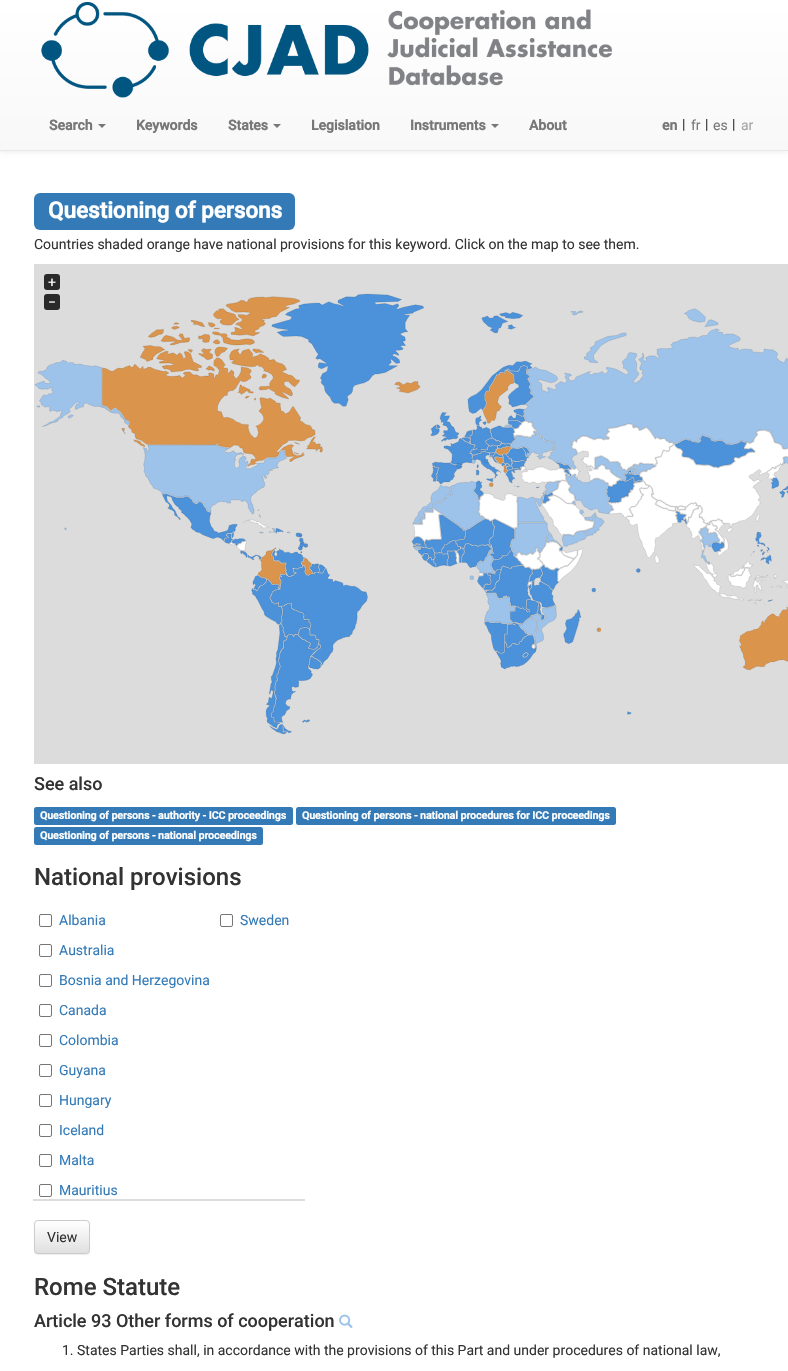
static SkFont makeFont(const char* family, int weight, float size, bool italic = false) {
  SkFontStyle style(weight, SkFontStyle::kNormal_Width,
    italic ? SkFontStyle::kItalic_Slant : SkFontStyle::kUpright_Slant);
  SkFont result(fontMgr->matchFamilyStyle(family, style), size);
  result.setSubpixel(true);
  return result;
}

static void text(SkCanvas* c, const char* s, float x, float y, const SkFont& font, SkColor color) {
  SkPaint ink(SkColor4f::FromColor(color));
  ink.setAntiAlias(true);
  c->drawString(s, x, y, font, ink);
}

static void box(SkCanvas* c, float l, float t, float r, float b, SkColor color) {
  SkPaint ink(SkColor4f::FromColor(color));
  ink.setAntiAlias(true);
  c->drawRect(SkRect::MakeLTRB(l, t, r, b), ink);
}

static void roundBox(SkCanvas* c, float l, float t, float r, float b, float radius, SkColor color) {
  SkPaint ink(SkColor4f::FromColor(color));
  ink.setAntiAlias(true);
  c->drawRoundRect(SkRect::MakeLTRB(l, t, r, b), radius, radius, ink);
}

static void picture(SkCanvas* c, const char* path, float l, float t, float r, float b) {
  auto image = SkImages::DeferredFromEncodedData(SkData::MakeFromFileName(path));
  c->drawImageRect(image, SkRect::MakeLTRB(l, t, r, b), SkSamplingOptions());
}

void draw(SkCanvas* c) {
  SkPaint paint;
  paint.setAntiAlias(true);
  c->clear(0xffffffff);
  paint.setColor(0x12000000);
  paint.setMaskFilter(SkMaskFilter::MakeBlur(kNormal_SkBlurStyle, 2.5f));
  c->drawRect(SkRect::MakeLTRB(0, 1, 788, 152), paint);
  paint.setMaskFilter(nullptr);
  {
    const SkColor colors[] = {0xffffffff, 0xfff8f8f8};
    const float stops[] = {0, 1};
    const SkPoint ends[] = {{394, 0}, {394, 150}};
    paint.setShader(SkGradientShader::MakeLinear(ends, colors, stops, 2, SkTileMode::kClamp));
    paint.setAlpha(255);
  }
  c->drawRect(SkRect::MakeLTRB(0, 0, 788, 150), paint);
  box(c, 0, 150, 788, 151, 0xffe7e7e7);
  picture(c, "img_01.png", 41, 1, 612, 98);
  SkFont face1 = makeFont("Roboto", 700, 14);
  text(c, "Search", 49, 130, face1, 0xff777777);
  paint.setShader(nullptr);
  paint.setColor(0xff777777);
  c->drawPath(SkPathBuilder().moveTo(98, 124).lineTo(106, 124).lineTo(102, 128).close().detach(), paint);
  text(c, "Keywords", 136, 130, face1, 0xff777777);
  text(c, "States", 228, 130, face1, 0xff777777);
  c->drawPath(SkPathBuilder().moveTo(273, 124).lineTo(281, 124).lineTo(277, 128).close().detach(), paint);
  text(c, "Legislation", 311, 130, face1, 0xff777777);
  text(c, "Instruments", 410, 130, face1, 0xff777777);
  c->drawPath(SkPathBuilder().moveTo(491, 124).lineTo(499, 124).lineTo(495, 128).close().detach(), paint);
  text(c, "About", 529, 130, face1, 0xff777777);
  text(c, "en", 662, 130, face1, 0xff777777);
  SkFont face2 = makeFont("Roboto", 400, 14);
  text(c, "|", 682, 129, face2, 0xff333333);
  text(c, "fr", 691, 130, face2, 0xff777777);
  text(c, "|", 705, 129, face2, 0xff333333);
  text(c, "es", 713, 130, face2, 0xff777777);
  text(c, "|", 732, 129, face2, 0xff333333);
  text(c, "ar", 741, 130, face2, 0xffa5a5a5);
  roundBox(c, 34, 193, 295, 230, 6, 0xff337ab7);
  SkFont face3 = makeFont("Roboto", 700, 22.5f);
  text(c, "Questioning of persons", 48, 218, face3, 0xffffffff);
  text(c, "Countries shaded orange have national provisions for this keyword. Click on the map to see them.", 34, 249, face2, 0xff333333);
  box(c, 34, 264, 788, 764, 0xffdcdcdc);
  roundBox(c, 44, 274, 60, 290, 3, 0xff292929);
  text(c, "+", 48, 287, face2, 0xffffffff);
  picture(c, "img_02.png", 34, 293, 788, 735);
  roundBox(c, 44, 294, 60, 310, 3, 0xff292929);
  text(c, "−", 48, 307, face2, 0xffffffff);
  SkFont face4 = makeFont("Roboto", 500, 18);
  text(c, "See also", 34, 790, face4, 0xff333333);
  roundBox(c, 34, 807, 293, 825, 2.5f, 0xff337ab7);
  SkFont face5 = makeFont("Roboto", 700, 10.5f);
  text(c, "Questioning of persons - authority - ICC proceedings", 40, 819, face5, 0xffffffff);
  roundBox(c, 296, 807, 616, 825, 2.5f, 0xff337ab7);
  text(c, "Questioning of persons - national procedures for ICC proceedings", 302, 819, face5, 0xffffffff);
  roundBox(c, 34, 827, 263, 845, 2.5f, 0xff337ab7);
  text(c, "Questioning of persons - national proceedings", 40, 839, face5, 0xffffffff);
  SkFont face6 = makeFont("Roboto", 500, 24);
  text(c, "National provisions", 34, 885, face6, 0xff333333);
  paint.setStyle(SkPaint::kStroke_Style);
  paint.setStrokeWidth(1);
  paint.setColor(0xff767676);
  c->drawRoundRect(SkRect::MakeLTRB(39.5f, 914.5f, 51.5f, 926.5f), 1.5f, 1.5f, paint);
  text(c, "Albania", 59, 925, face2, 0xff337ab7);
  c->drawRoundRect(SkRect::MakeLTRB(220.5f, 914.5f, 232.5f, 926.5f), 1.5f, 1.5f, paint);
  text(c, "Sweden", 240, 925, face2, 0xff337ab7);
  c->drawRoundRect(SkRect::MakeLTRB(39.5f, 944.5f, 51.5f, 956.5f), 1.5f, 1.5f, paint);
  text(c, "Australia", 59, 955, face2, 0xff337ab7);
  c->drawRoundRect(SkRect::MakeLTRB(39.5f, 974.5f, 51.5f, 986.5f), 1.5f, 1.5f, paint);
  text(c, "Bosnia and Herzegovina", 59, 985, face2, 0xff337ab7);
  c->drawRoundRect(SkRect::MakeLTRB(39.5f, 1004.5f, 51.5f, 1016.5f), 1.5f, 1.5f, paint);
  text(c, "Canada", 59, 1015, face2, 0xff337ab7);
  c->drawRoundRect(SkRect::MakeLTRB(39.5f, 1034.5f, 51.5f, 1046.5f), 1.5f, 1.5f, paint);
  text(c, "Colombia", 59, 1045, face2, 0xff337ab7);
  c->drawRoundRect(SkRect::MakeLTRB(39.5f, 1064.5f, 51.5f, 1076.5f), 1.5f, 1.5f, paint);
  text(c, "Guyana", 59, 1075, face2, 0xff337ab7);
  c->drawRoundRect(SkRect::MakeLTRB(39.5f, 1094.5f, 51.5f, 1106.5f), 1.5f, 1.5f, paint);
  text(c, "Hungary", 59, 1105, face2, 0xff337ab7);
  c->drawRoundRect(SkRect::MakeLTRB(39.5f, 1124.5f, 51.5f, 1136.5f), 1.5f, 1.5f, paint);
  text(c, "Iceland", 59, 1135, face2, 0xff337ab7);
  c->drawRoundRect(SkRect::MakeLTRB(39.5f, 1154.5f, 51.5f, 1166.5f), 1.5f, 1.5f, paint);
  text(c, "Malta", 59, 1165, face2, 0xff337ab7);
  c->drawRoundRect(SkRect::MakeLTRB(39.5f, 1184.5f, 51.5f, 1196.5f), 1.5f, 1.5f, paint);
  text(c, "Mauritius", 59, 1195, face2, 0xff337ab7);
  box(c, 33, 1199, 305, 1201, 0xffdddddd);
  paint.setStyle(SkPaint::kFill_Style);
  paint.setColor(0x12000000);
  paint.setMaskFilter(SkMaskFilter::MakeBlur(kNormal_SkBlurStyle, 0.5f));
  c->drawRoundRect(SkRect::MakeLTRB(34, 1221, 90, 1255), 4, 4, paint);
  paint.setMaskFilter(nullptr);
  c->save();
  c->clipPath(SkPathBuilder().moveTo(38, 1220).lineTo(86, 1220).cubicTo(88, 1220, 90, 1222, 90, 1224).lineTo(90, 1250).cubicTo(90, 1252, 88, 1254, 86, 1254).lineTo(38, 1254).cubicTo(36, 1254, 34, 1252, 34, 1250).lineTo(34, 1224).cubicTo(34, 1222, 36, 1220, 38, 1220).close().detach(), true);
  {
    const SkColor colors[] = {0xffffffff, 0xffe0e0e0};
    const float stops[] = {0, 1};
    const SkPoint ends[] = {{62, 1221}, {62, 1253}};
    paint.setShader(SkGradientShader::MakeLinear(ends, colors, stops, 2, SkTileMode::kClamp));
    paint.setAlpha(255);
  }
  c->drawRect(SkRect::MakeLTRB(34, 1221, 90, 1253), paint);
  c->restore();
  paint.setStyle(SkPaint::kStroke_Style);
  paint.setShader(nullptr);
  paint.setColor(0xffcccccc);
  c->drawRoundRect(SkRect::MakeLTRB(34.5f, 1220.5f, 89.5f, 1253.5f), 3.5f, 3.5f, paint);
  text(c, "View", 47, 1242, face2, 0xff333333);
  text(c, "Rome Statute", 34, 1295, face6, 0xff333333);
  text(c, "Article 93 Other forms of cooperation", 34, 1327, face4, 0xff333333);
  picture(c, "img_03.png", 339, 1314, 353, 1328);
  text(c, "1. States Parties shall, in accordance with the provisions of this Part and under procedures of national law,", 62, 1355, face2, 0xff333333);
}
